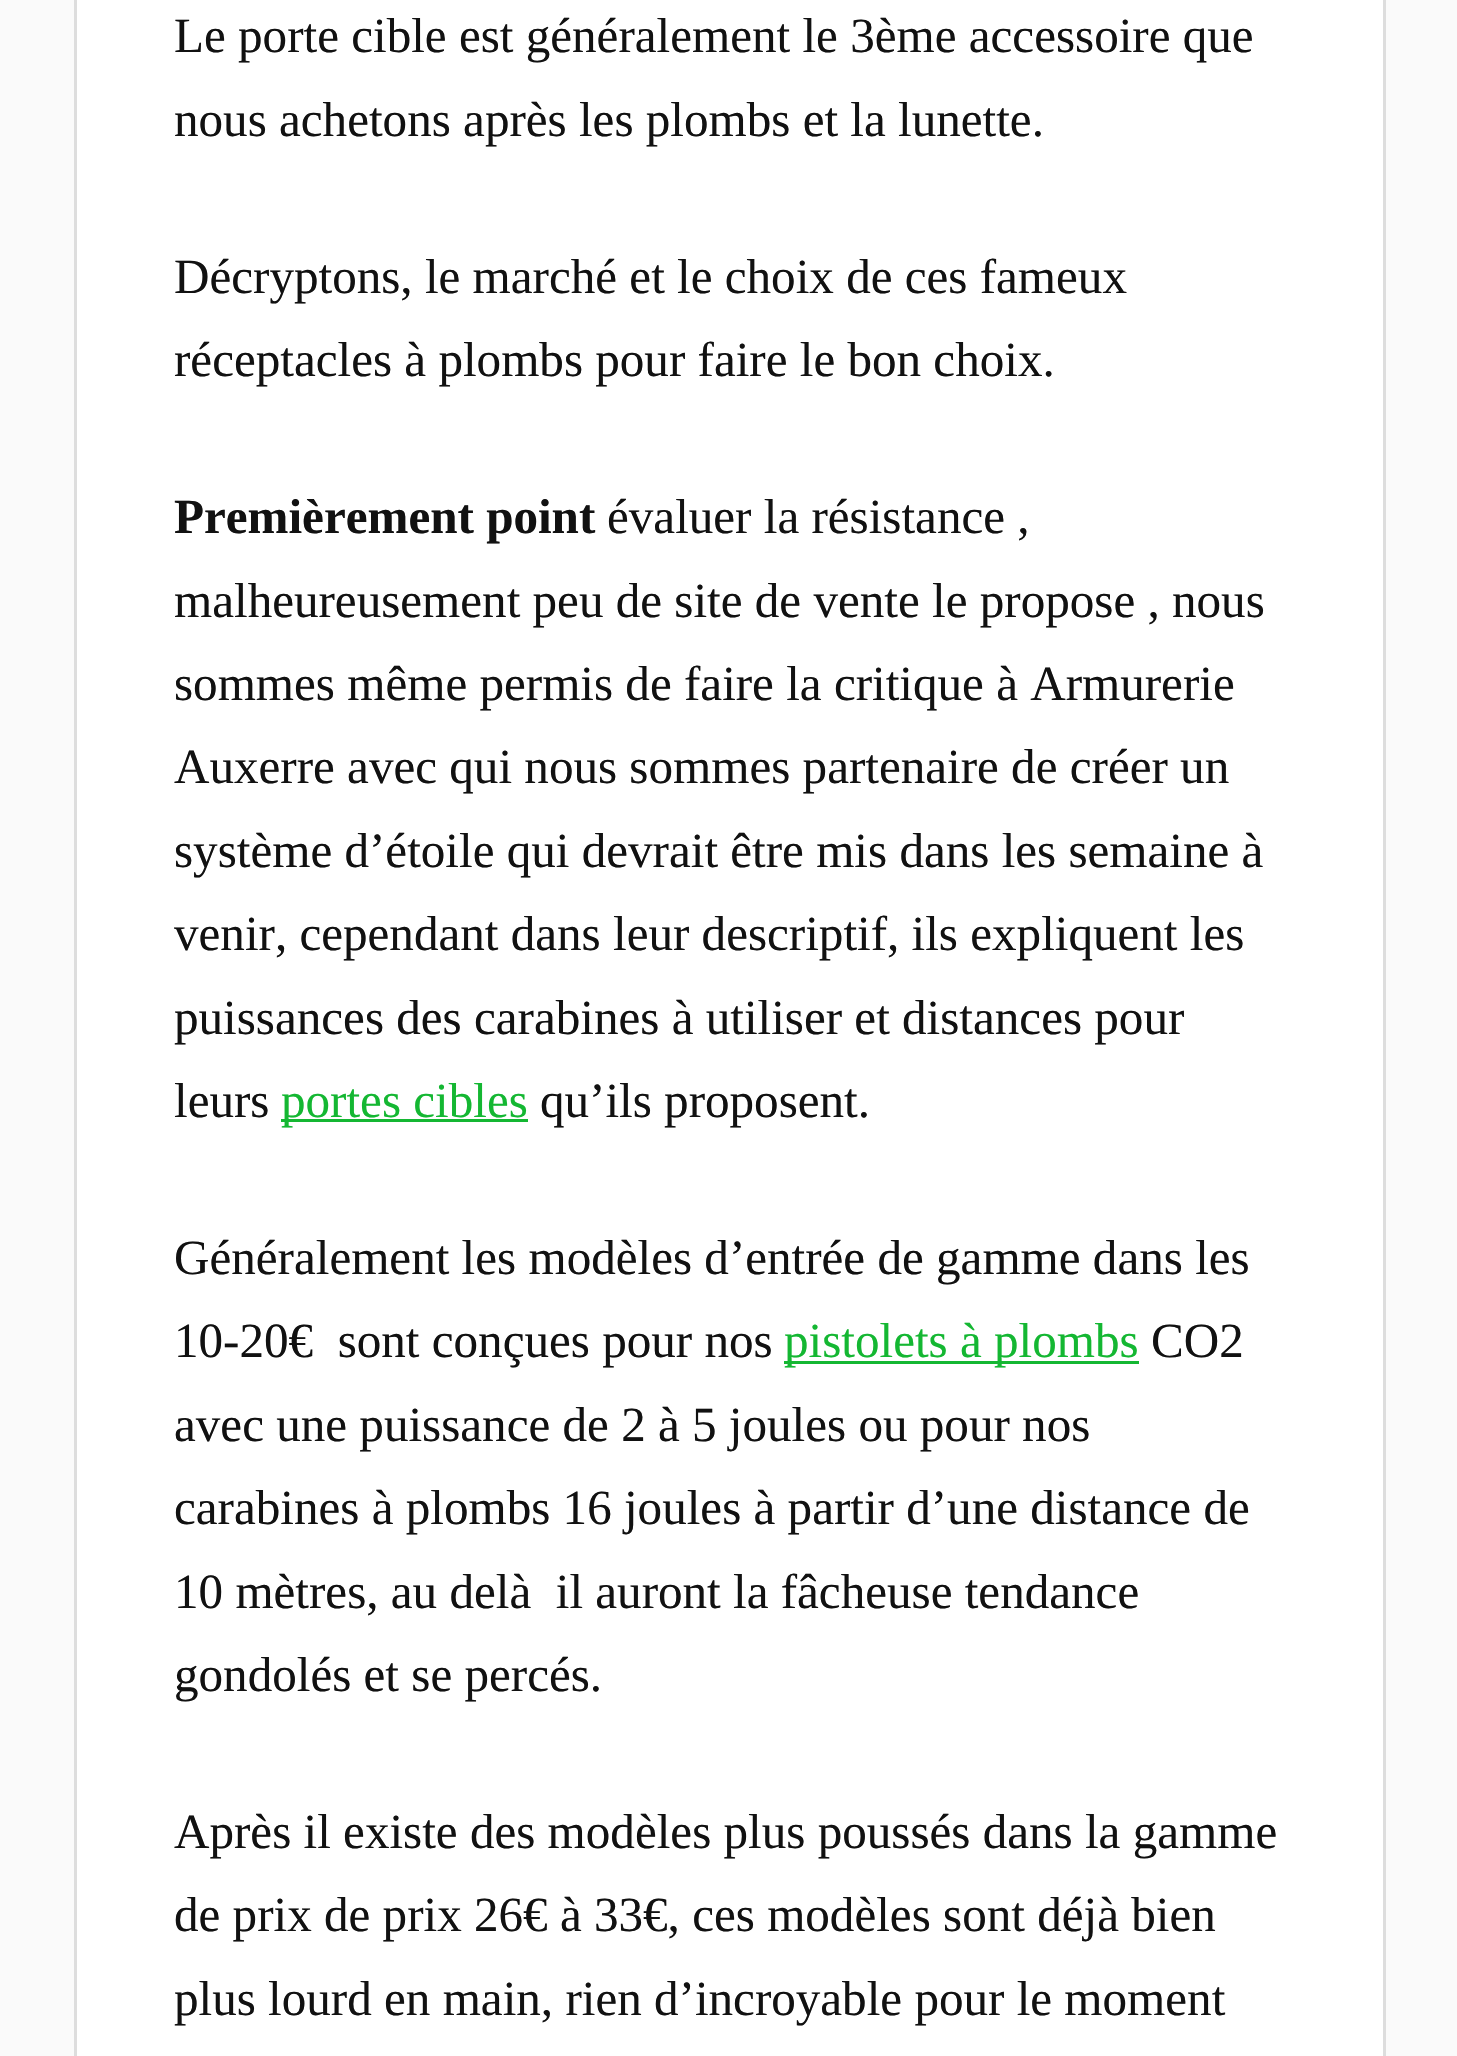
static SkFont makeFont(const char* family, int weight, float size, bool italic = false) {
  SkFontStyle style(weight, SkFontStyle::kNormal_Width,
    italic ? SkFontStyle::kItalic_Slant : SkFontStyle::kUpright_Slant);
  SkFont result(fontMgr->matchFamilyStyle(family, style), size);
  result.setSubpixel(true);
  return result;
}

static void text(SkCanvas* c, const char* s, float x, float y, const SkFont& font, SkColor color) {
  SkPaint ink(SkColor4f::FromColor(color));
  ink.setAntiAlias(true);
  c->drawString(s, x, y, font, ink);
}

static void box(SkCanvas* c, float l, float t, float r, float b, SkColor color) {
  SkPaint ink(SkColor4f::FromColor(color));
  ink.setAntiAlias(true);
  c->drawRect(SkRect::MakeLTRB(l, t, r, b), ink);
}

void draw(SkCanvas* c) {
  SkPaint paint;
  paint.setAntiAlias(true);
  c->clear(0xfffafafa);
  paint.setColor(0xffffffff);
  c->drawRect(SkRect::MakeLTRB(75.5f, -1.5f, 1384.5f, 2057.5f), paint);
  paint.setStyle(SkPaint::kStroke_Style);
  paint.setStrokeWidth(3);
  paint.setColor(0xffdddddd);
  c->drawRect(SkRect::MakeLTRB(75.5f, -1.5f, 1384.5f, 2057.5f), paint);
  SkFont face1 = makeFont("Liberation Serif", 400, 49.1f);
  text(c, "Le porte cible est généralement le 3ème accessoire que", 174, 52, face1, 0xff111111);
  text(c, "nous achetons après les plombs et la lunette.", 174, 136, face1, 0xff111111);
  text(c, "Décryptons, le marché et le choix de ces fameux", 174, 293, face1, 0xff111111);
  text(c, "réceptacles à plombs pour faire le bon choix.", 174, 376, face1, 0xff111111);
  SkFont face2 = makeFont("Liberation Serif", 700, 49.1f);
  text(c, "Premièrement point", 174, 533, face2, 0xff111111);
  text(c, "évaluer la résistance ,", 607, 533, face1, 0xff111111);
  text(c, "malheureusement peu de site de vente le propose , nous", 174, 617, face1, 0xff111111);
  text(c, "sommes même permis de faire la critique à Armurerie", 174, 700, face1, 0xff111111);
  text(c, "Auxerre avec qui nous sommes partenaire de créer un", 174, 783, face1, 0xff111111);
  text(c, "système d’étoile qui devrait être mis dans les semaine à", 174, 867, face1, 0xff111111);
  text(c, "venir, cependant dans leur descriptif, ils expliquent les", 174, 950, face1, 0xff111111);
  text(c, "puissances des carabines à utiliser et distances pour", 174, 1034, face1, 0xff111111);
  text(c, "leurs", 174, 1117, face1, 0xff111111);
  box(c, 281, 1119, 528, 1122, 0xff14b732);
  text(c, "portes cibles", 281, 1117, face1, 0xff14b732);
  text(c, "qu’ils proposent.", 540, 1117, face1, 0xff111111);
  text(c, "Généralement les modèles d’entrée de gamme dans les", 174, 1274, face1, 0xff111111);
  text(c, "10-20€  sont conçues pour nos", 174, 1357, face1, 0xff111111);
  box(c, 784, 1361, 1139, 1364, 0xff14b732);
  text(c, "pistolets à plombs", 784, 1357, face1, 0xff14b732);
  text(c, "CO2", 1151, 1357, face1, 0xff111111);
  text(c, "avec une puissance de 2 à 5 joules ou pour nos", 174, 1441, face1, 0xff111111);
  text(c, "carabines à plombs 16 joules à partir d’une distance de", 174, 1524, face1, 0xff111111);
  text(c, "10 mètres, au delà  il auront la fâcheuse tendance", 174, 1608, face1, 0xff111111);
  text(c, "gondolés et se percés.", 174, 1691, face1, 0xff111111);
  text(c, "Après il existe des modèles plus poussés dans la gamme", 174, 1848, face1, 0xff111111);
  text(c, "de prix de prix 26€ à 33€, ces modèles sont déjà bien", 174, 1931, face1, 0xff111111);
  text(c, "plus lourd en main, rien d’incroyable pour le moment", 174, 2015, face1, 0xff111111);
}
